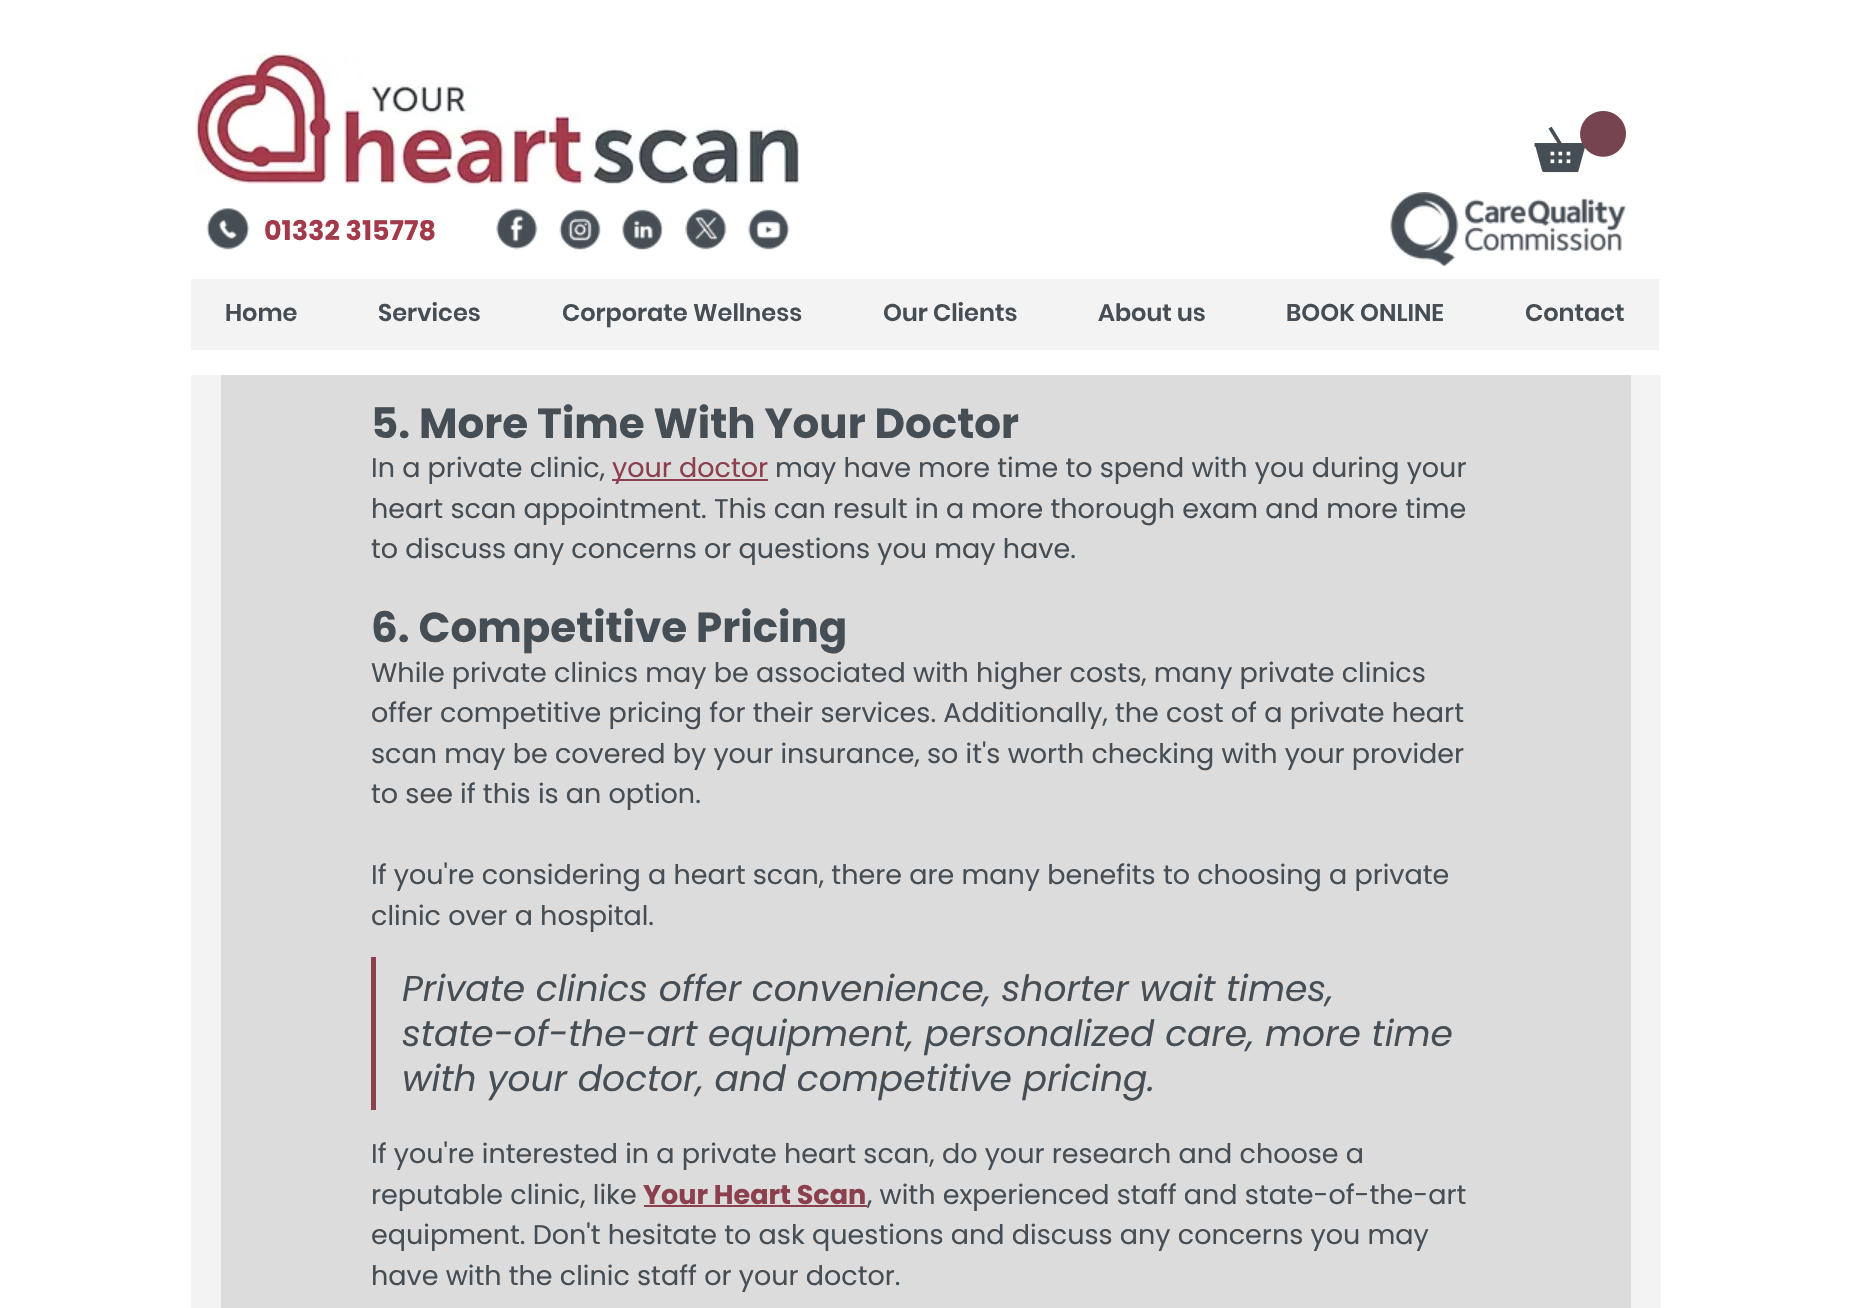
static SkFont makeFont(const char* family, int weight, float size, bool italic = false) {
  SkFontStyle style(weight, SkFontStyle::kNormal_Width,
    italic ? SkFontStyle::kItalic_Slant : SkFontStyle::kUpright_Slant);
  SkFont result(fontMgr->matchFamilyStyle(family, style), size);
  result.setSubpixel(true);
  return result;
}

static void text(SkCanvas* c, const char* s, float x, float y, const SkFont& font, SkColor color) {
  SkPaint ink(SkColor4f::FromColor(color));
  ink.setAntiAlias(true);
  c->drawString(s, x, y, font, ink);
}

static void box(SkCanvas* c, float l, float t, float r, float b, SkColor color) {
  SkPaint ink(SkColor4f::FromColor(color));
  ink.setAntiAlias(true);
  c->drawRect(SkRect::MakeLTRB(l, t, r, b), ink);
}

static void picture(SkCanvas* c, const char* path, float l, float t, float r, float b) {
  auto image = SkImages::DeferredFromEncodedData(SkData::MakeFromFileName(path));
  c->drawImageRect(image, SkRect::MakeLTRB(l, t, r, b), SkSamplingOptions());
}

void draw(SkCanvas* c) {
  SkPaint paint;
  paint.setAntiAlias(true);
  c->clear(0xffffffff);
  picture(c, "img_01.png", 195, 54, 801, 185);
  picture(c, "img_02.png", 1534, 111, 1626, 173);
  picture(c, "img_03.png", 206, 208, 250, 250);
  SkFont face1 = makeFont("Poppins", 700, 27);
  text(c, "01332 315778", 264, 240, face1, 0xffa33a49);
  picture(c, "img_04.png", 496, 208, 538, 250);
  picture(c, "img_05.png", 559, 209, 601, 250);
  picture(c, "img_06.png", 622, 209, 663, 250);
  picture(c, "img_07.png", 685, 208, 727, 250);
  picture(c, "img_08.png", 748, 209, 790, 250);
  picture(c, "img_09.png", 1390, 192, 1626, 266);
  box(c, 191, 279, 1659, 350, 0xfff3f3f3);
  SkFont face2 = makeFont("Poppins", 600, 24);
  text(c, "Home", 225, 321, face2, 0xff464e55);
  text(c, "Services", 378, 321, face2, 0xff464e55);
  text(c, "Corporate Wellness", 562, 321, face2, 0xff464e55);
  text(c, "Our Clients", 883, 321, face2, 0xff464e55);
  text(c, "About us", 1098, 321, face2, 0xff464e55);
  text(c, "BOOK ONLINE", 1286, 321, face2, 0xff464e55);
  text(c, "Contact", 1525, 321, face2, 0xff464e55);
  box(c, 191, 375, 1661, 1308, 0xfff3f3f3);
  box(c, 221, 375, 1631, 1308, 0xffdcdcdc);
  SkFont face3 = makeFont("Poppins", 700, 42);
  text(c, "5. More Time With Your Doctor", 371, 438, face3, 0xff464e55);
  SkFont face4 = makeFont("Poppins", 400, 27);
  text(c, "In a private clinic,", 371, 477, face4, 0xff464e55);
  box(c, 612, 479, 768, 481, 0xff8c3f4c);
  text(c, "your doctor", 612, 477, face4, 0xff8c3f4c);
  text(c, "may have more time to spend with you during your", 775, 477, face4, 0xff464e55);
  text(c, "heart scan appointment. This can result in a more thorough exam and more time", 371, 518, face4, 0xff464e55);
  text(c, "to discuss any concerns or questions you may have.", 371, 558, face4, 0xff464e55);
  text(c, "6. Competitive Pricing", 371, 642, face3, 0xff464e55);
  text(c, "While private clinics may be associated with higher costs, many private clinics", 371, 682, face4, 0xff464e55);
  text(c, "offer competitive pricing for their services. Additionally, the cost of a private heart", 371, 722, face4, 0xff464e55);
  text(c, "scan may be covered by your insurance, so it's worth checking with your provider", 371, 763, face4, 0xff464e55);
  text(c, "to see if this is an option.", 371, 803, face4, 0xff464e55);
  text(c, "If you're considering a heart scan, there are many benefits to choosing a private", 371, 884, face4, 0xff464e55);
  text(c, "clinic over a hospital.", 371, 925, face4, 0xff464e55);
  box(c, 371, 957, 376, 1110, 0xff8c3f4c);
  SkFont face5 = makeFont("Poppins", 400, 36, true);
  text(c, "Private clinics offer convenience, shorter wait times,", 402, 1001, face5, 0xff464e55);
  text(c, "state-of-the-art equipment, personalized care, more time", 402, 1046, face5, 0xff464e55);
  text(c, "with your doctor, and competitive pricing.", 402, 1091, face5, 0xff464e55);
  text(c, "If you're interested in a private heart scan, do your research and choose a", 371, 1163, face4, 0xff464e55);
  text(c, "reputable clinic, like", 371, 1204, face4, 0xff464e55);
  text(c, "Your Heart Scan", 643, 1204, face1, 0xff8c3f4c);
  box(c, 644, 1205, 867, 1207, 0xff8c3f4c);
  text(c, ", with experienced staff and state-of-the-art", 867, 1204, face4, 0xff464e55);
  text(c, "equipment. Don't hesitate to ask questions and discuss any concerns you may", 371, 1244, face4, 0xff464e55);
  text(c, "have with the clinic staff or your doctor.", 371, 1285, face4, 0xff464e55);
}
